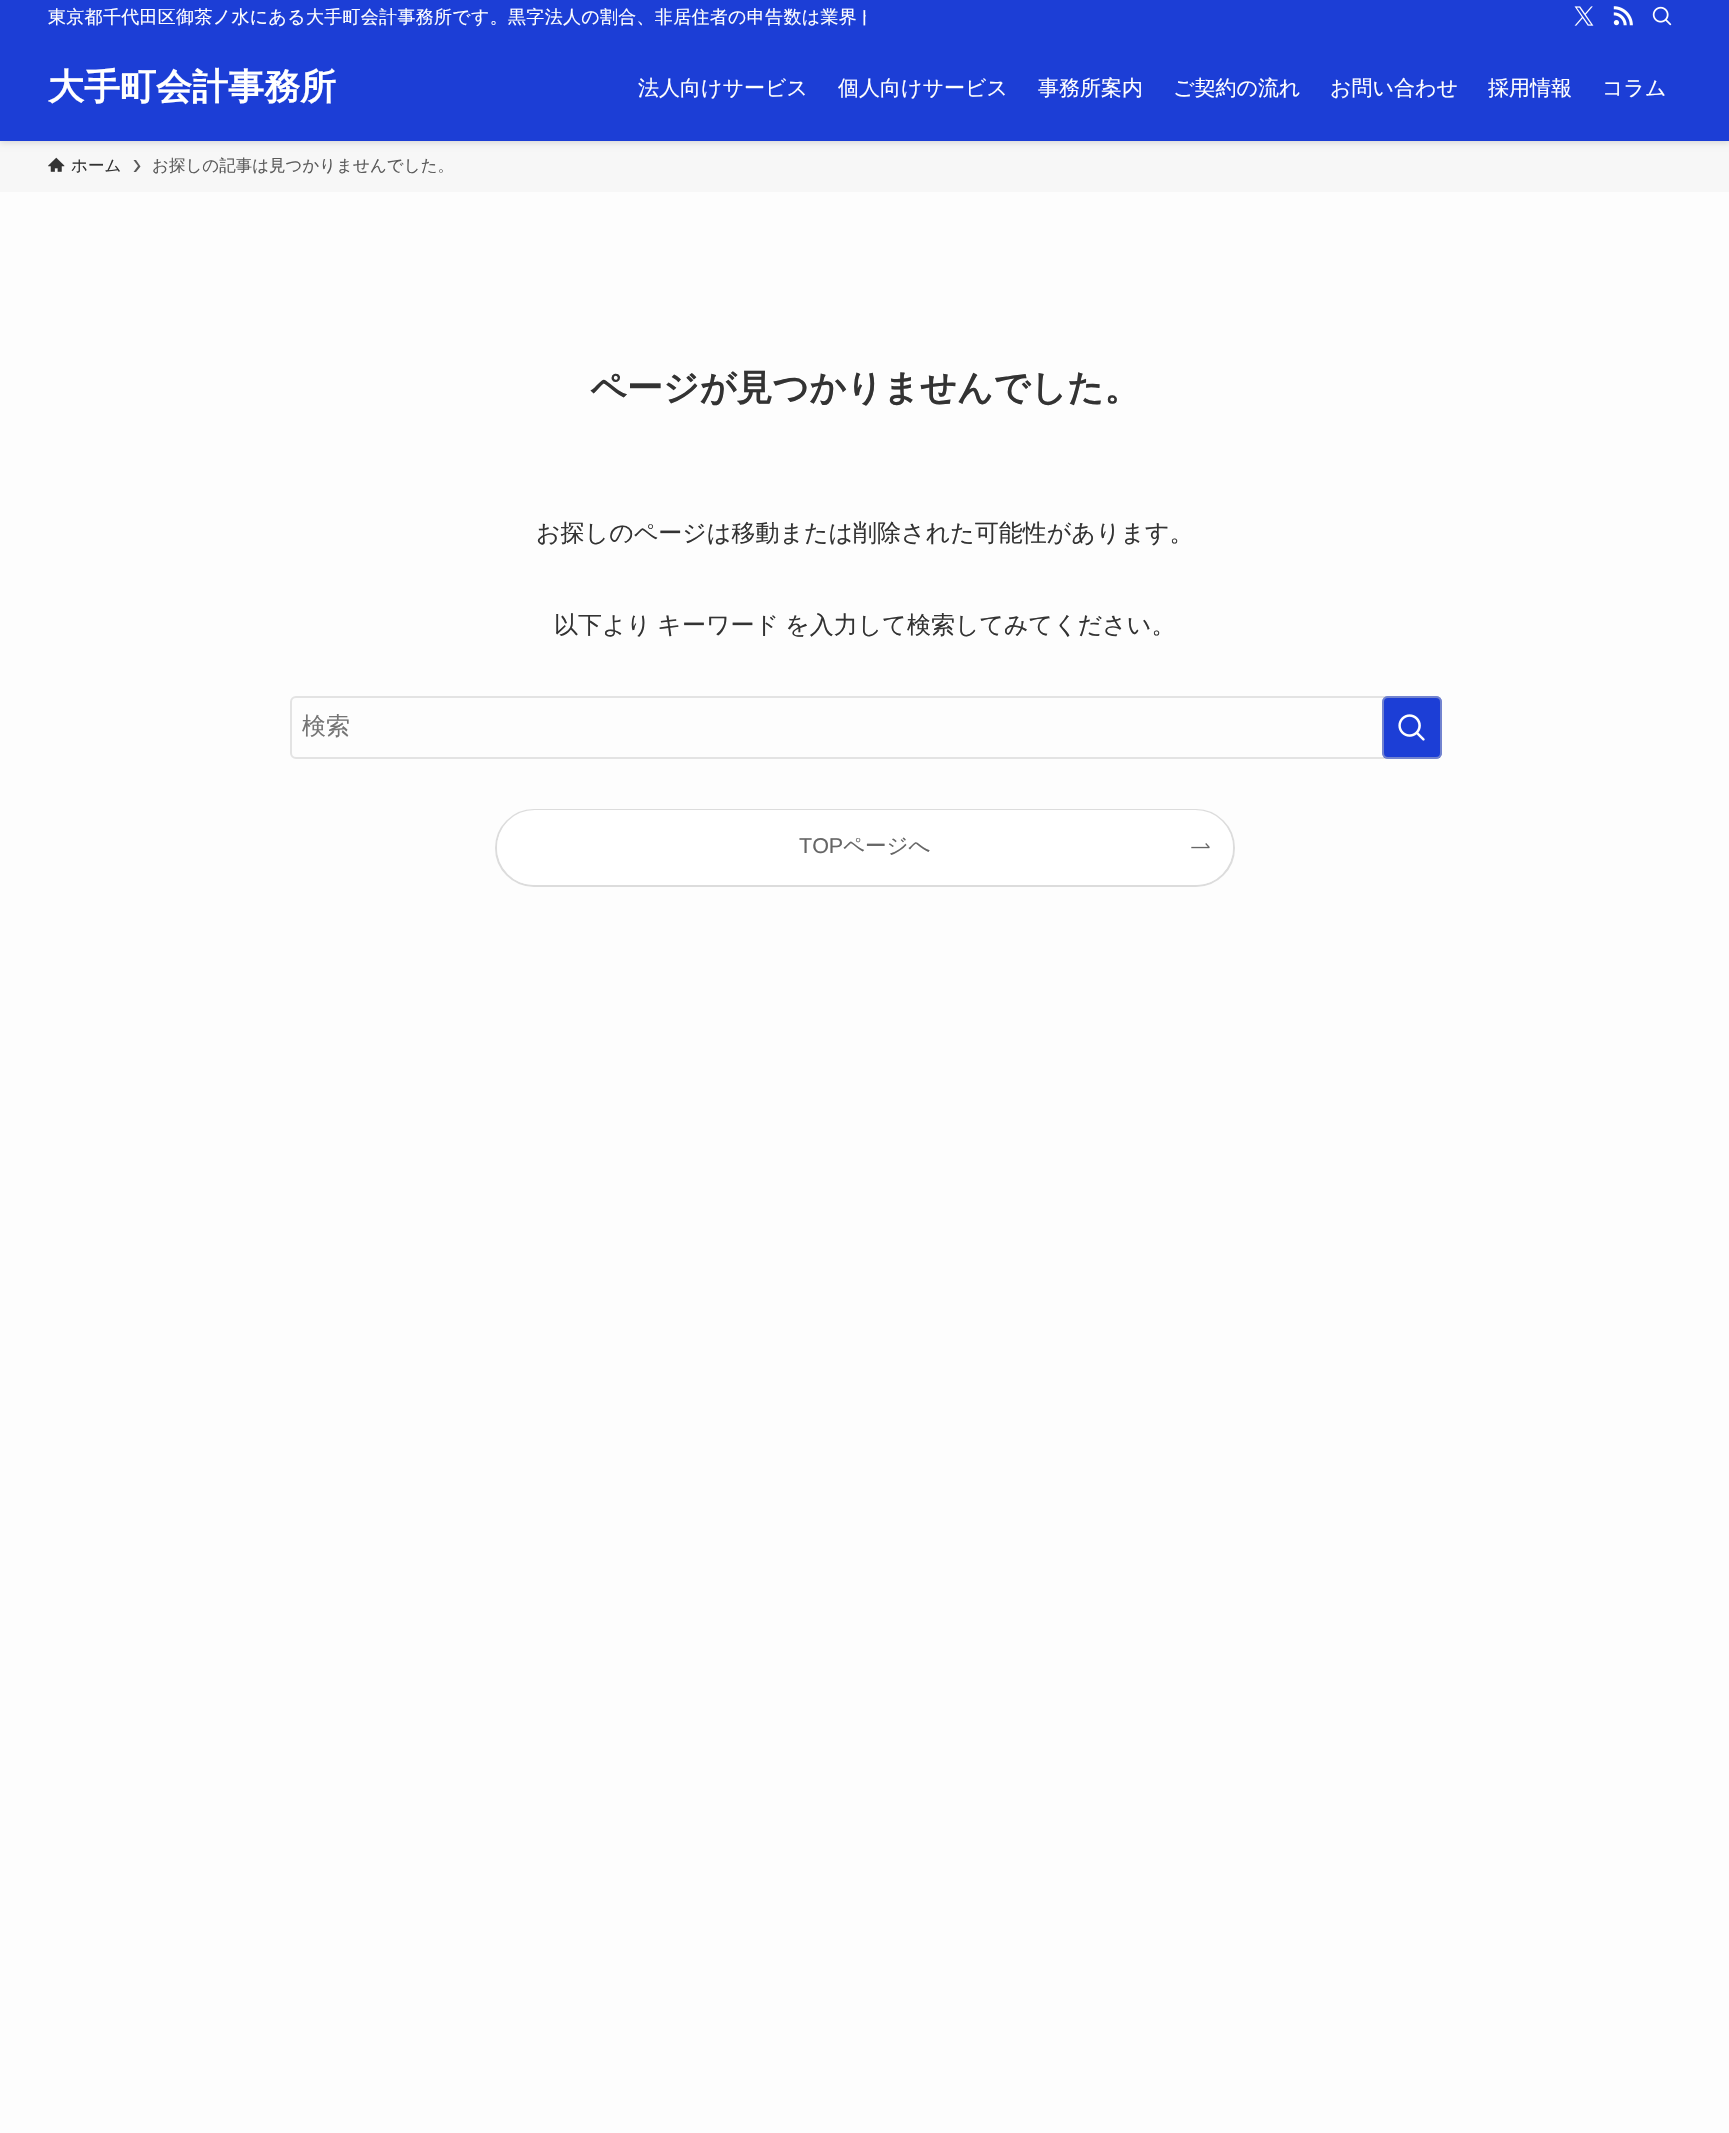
static SkFont makeFont(const char* family, int weight, float size, bool italic = false) {
  SkFontStyle style(weight, SkFontStyle::kNormal_Width,
    italic ? SkFontStyle::kItalic_Slant : SkFontStyle::kUpright_Slant);
  SkFont result(fontMgr->matchFamilyStyle(family, style), size);
  result.setSubpixel(true);
  return result;
}

static void text(SkCanvas* c, const char* s, float x, float y, const SkFont& font, SkColor color) {
  SkPaint ink(SkColor4f::FromColor(color));
  ink.setAntiAlias(true);
  c->drawString(s, x, y, font, ink);
}

static void spacedText(SkCanvas* c, const char* s, float x, float y, const SkFont& font, const SkPaint& ink, float letter, float word) {
  std::vector<SkGlyphID> glyphs(font.countText(s, strlen(s), SkTextEncoding::kUTF8));
  std::vector<float> xs(glyphs.size());
  font.textToGlyphs(s, strlen(s), SkTextEncoding::kUTF8, glyphs);
  font.getXPos(glyphs, xs, x);
  float extra = 0;
  for (size_t i = 0; i < glyphs.size(); i++) {
    xs[i] += extra;
    extra += letter + word * (glyphs[i] == font.unicharToGlyph(' '));
  }
  c->drawTextBlob(SkTextBlob::MakeFromPosHGlyphs(glyphs, xs, y, font), 0, 0, ink);
}

static void box(SkCanvas* c, float l, float t, float r, float b, SkColor color) {
  SkPaint ink(SkColor4f::FromColor(color));
  ink.setAntiAlias(true);
  c->drawRect(SkRect::MakeLTRB(l, t, r, b), ink);
}

static void roundBox(SkCanvas* c, float l, float t, float r, float b, float radius, SkColor color) {
  SkPaint ink(SkColor4f::FromColor(color));
  ink.setAntiAlias(true);
  c->drawRoundRect(SkRect::MakeLTRB(l, t, r, b), radius, radius, ink);
}

static void picture(SkCanvas* c, const char* path, float l, float t, float r, float b) {
  auto image = SkImages::DeferredFromEncodedData(SkData::MakeFromFileName(path));
  c->drawImageRect(image, SkRect::MakeLTRB(l, t, r, b), SkSamplingOptions());
}

void draw(SkCanvas* c) {
  SkPaint paint;
  paint.setAntiAlias(true);
  c->clear(0xfffdfdfd);
  box(c, 0, 141, 1729, 192, 0xfff7f7f7);
  paint.setColor(0x1f000000);
  paint.setMaskFilter(SkMaskFilter::MakeBlur(kNormal_SkBlurStyle, 3));
  c->drawRect(SkRect::MakeLTRB(0, 2, 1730, 143), paint);
  paint.setMaskFilter(nullptr);
  box(c, 0, 0, 1729, 141, 0xff1c3ed6);
  c->save();
  c->clipRect(SkRect::MakeLTRB(48, 0, 866, 33));
  SkFont face1 = makeFont("WenQuanYi Zen Hei", 500, 18);
  paint.setColor(0xffffffff);
  spacedText(c, "東京都千代田区御茶ノ水にある大手町会計事務所です。黒字法人の割合、非居住者の申告数は業界ト", 48, 23, face1, paint, 0.3f, 0);
  c->restore();
  picture(c, "img_01.png", 1574, 6, 1594, 26);
  picture(c, "img_02.png", 1613, 6, 1633, 26);
  picture(c, "img_03.png", 1652, 6, 1672, 26);
  SkFont face2 = makeFont("WenQuanYi Zen Hei", 700, 36);
  text(c, "大手町会計事務所", 48, 99, face2, 0xffffffff);
  SkFont face3 = makeFont("WenQuanYi Zen Hei", 500, 21);
  text(c, "法人向けサービス", 638, 95, face3, 0xffffffff);
  text(c, "個人向けサービス", 838, 95, face3, 0xffffffff);
  text(c, "事務所案内", 1038, 95, face3, 0xffffffff);
  text(c, "ご契約の流れ", 1173, 95, face3, 0xffffffff);
  text(c, "お問い合わせ", 1330, 95, face3, 0xffffffff);
  text(c, "採用情報", 1488, 95, face3, 0xffffffff);
  text(c, "コラム", 1602, 95, face3, 0xffffffff);
  picture(c, "img_04.png", 48, 157, 65, 172);
  SkFont face4 = makeFont("WenQuanYi Zen Hei", 500, 16.5f);
  text(c, "ホーム", 71, 171, face4, 0xff333333);
  paint.setColor(0xff5a5a5a);
  c->drawPath(SkPathBuilder().moveTo(136, 160).lineTo(133.5f, 160).lineTo(138, 166).lineTo(133.5f, 172).lineTo(136, 172).lineTo(140.5f, 166.5f).close().detach(), paint);
  text(c, "お探しの記事は見つかりませんでした。", 152, 171, face4, 0xff5a5a5a);
  text(c, "ページが見つかりませんでした。", 590, 400, face2, 0xff333333);
  SkFont face5 = makeFont("WenQuanYi Zen Hei", 500, 24);
  text(c, "お探しのページは移動または削除された可能性があります。", 536, 541, face5, 0xff333333);
  paint.setColor(0xff333333);
  spacedText(c, "以下より キーワード を入力して検索してみてください。", 554, 633, face5, paint, 0, -1);
  paint.setStyle(SkPaint::kStroke_Style);
  paint.setStrokeWidth(2);
  paint.setColor(0xffe3e3e3);
  c->drawRoundRect(SkRect::MakeLTRB(291, 697, 1441, 758), 5, 5, paint);
  text(c, "検索", 302, 734, face5, 0xff757575);
  roundBox(c, 1382, 696, 1442, 759, 6, 0xff1c3ed6);
  paint.setColor(0x80c7c7c7);
  c->drawRoundRect(SkRect::MakeLTRB(1383, 697, 1441, 758), 5, 5, paint);
  picture(c, "img_05.png", 1398, 714, 1425, 741);
  paint.setColor(0xffdcdcdc);
  c->drawRoundRect(SkRect::MakeLTRB(496, 810, 1234, 886), 38, 38, paint);
  roundBox(c, 497, 810, 1233, 885, 37.5f, 0xffffffff);
  SkFont face6 = makeFont("Liberation Sans", 400, 21.5f);
  text(c, "TOP", 799, 853, face6, 0xff666666);
  SkFont face7 = makeFont("WenQuanYi Zen Hei", 500, 21.5f);
  text(c, "ページへ", 843, 853, face7, 0xff666666);
  picture(c, "img_06.png", 1191, 843, 1210, 849);
}
